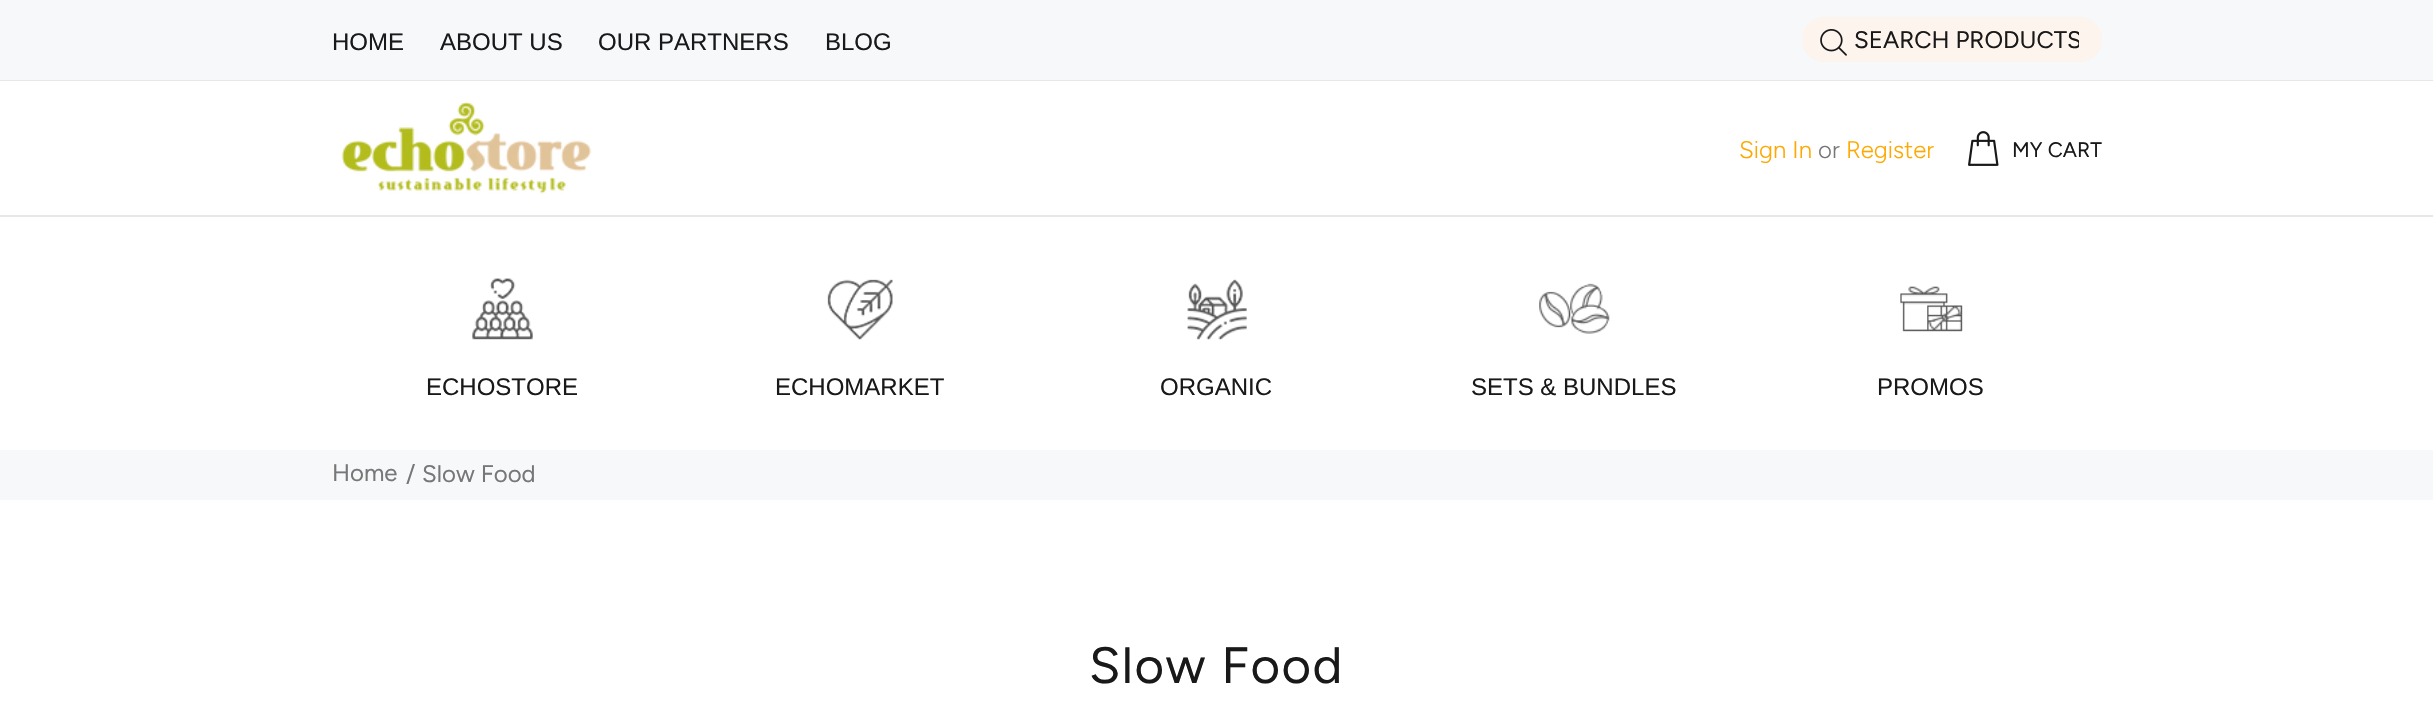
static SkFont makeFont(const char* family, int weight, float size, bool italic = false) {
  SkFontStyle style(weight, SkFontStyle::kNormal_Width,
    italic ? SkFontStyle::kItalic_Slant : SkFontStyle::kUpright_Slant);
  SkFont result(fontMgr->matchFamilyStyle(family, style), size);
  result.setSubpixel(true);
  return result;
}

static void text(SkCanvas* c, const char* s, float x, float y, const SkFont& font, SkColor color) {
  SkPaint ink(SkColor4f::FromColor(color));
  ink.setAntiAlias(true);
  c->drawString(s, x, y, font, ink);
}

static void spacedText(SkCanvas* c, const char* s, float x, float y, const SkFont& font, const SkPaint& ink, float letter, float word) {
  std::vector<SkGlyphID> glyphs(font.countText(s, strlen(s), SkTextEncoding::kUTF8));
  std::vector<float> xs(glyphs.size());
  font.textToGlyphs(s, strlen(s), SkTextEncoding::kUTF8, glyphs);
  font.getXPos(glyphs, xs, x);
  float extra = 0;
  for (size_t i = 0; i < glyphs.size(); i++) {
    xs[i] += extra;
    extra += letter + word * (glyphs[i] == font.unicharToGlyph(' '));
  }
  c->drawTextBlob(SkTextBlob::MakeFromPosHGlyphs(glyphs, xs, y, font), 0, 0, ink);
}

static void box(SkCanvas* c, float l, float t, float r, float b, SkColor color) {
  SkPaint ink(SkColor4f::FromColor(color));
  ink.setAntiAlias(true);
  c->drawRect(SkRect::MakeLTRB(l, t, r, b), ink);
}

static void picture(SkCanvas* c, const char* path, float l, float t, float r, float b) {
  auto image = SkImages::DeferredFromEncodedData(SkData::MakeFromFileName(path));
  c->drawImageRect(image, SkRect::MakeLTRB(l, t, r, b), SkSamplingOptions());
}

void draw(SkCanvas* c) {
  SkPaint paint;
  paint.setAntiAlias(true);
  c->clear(0xffffffff);
  box(c, 0, 0, 2433, 80, 0xfff7f8fa);
  box(c, 0, 80, 2433, 81, 0xffe9e7e7);
  SkFont face1 = makeFont("Liberation Sans", 400, 24);
  text(c, "HOME", 332, 50, face1, 0xff191919);
  text(c, "ABOUT US", 440, 50, face1, 0xff191919);
  text(c, "OUR PARTNERS", 598, 50, face1, 0xff191919);
  text(c, "BLOG", 825, 50, face1, 0xff191919);
  paint.setColor(0xfffcf4ed);
  c->drawRoundRect(SkRect::MakeLTRB(1803, 18, 2101, 61), 21.5f, 21.5f, paint);
  paint.setStyle(SkPaint::kStroke_Style);
  paint.setStrokeWidth(2);
  c->drawRoundRect(SkRect::MakeLTRB(1803, 18, 2101, 61), 21.5f, 21.5f, paint);
  picture(c, "img_01.png", 1820, 29, 1847, 56);
  c->save();
  c->clipRect(SkRect::MakeLTRB(1854, 26, 2079, 54));
  SkFont face2 = makeFont("Figtree", 400, 24);
  text(c, "SEARCH PRODUCTS", 1854, 48, face2, 0xff191919);
  c->restore();
  box(c, 0, 215, 2433, 217, 0xffe9e7e7);
  picture(c, "img_02.png", 341, 102, 592, 194);
  SkFont face3 = makeFont("Figtree", 300, 24);
  text(c, "Sign In", 1739, 158, face3, 0xfffea800);
  text(c, "or", 1818, 158, face3, 0xff777777);
  text(c, "Register", 1846, 158, face3, 0xfffea800);
  picture(c, "img_03.png", 1968, 131, 1999, 166);
  SkFont face4 = makeFont("Figtree", 400, 21);
  text(c, "MY CART", 2012, 157, face4, 0xff191919);
  picture(c, "img_04.png", 472, 278, 533, 340);
  text(c, "ECHOSTORE", 426, 395, face1, 0xff191919);
  picture(c, "img_05.png", 827, 279, 893, 340);
  text(c, "ECHOMARKET", 775, 395, face1, 0xff191919);
  picture(c, "img_06.png", 1187, 279, 1247, 340);
  text(c, "ORGANIC", 1160, 395, face1, 0xff191919);
  picture(c, "img_07.png", 1539, 283, 1610, 334);
  text(c, "SETS & BUNDLES", 1471, 395, face1, 0xff191919);
  picture(c, "img_08.png", 1900, 286, 1963, 332);
  text(c, "PROMOS", 1877, 395, face1, 0xff191919);
  box(c, 0, 450, 2433, 500, 0xfff7f8fa);
  text(c, "Home", 332, 481, face2, 0xff777777);
  text(c, "/", 406, 482, face2, 0xff777777);
  text(c, "Slow Food", 422, 482, face2, 0xff777777);
  SkFont face5 = makeFont("Figtree", 400, 51);
  paint.setStyle(SkPaint::kFill_Style);
  paint.setColor(0xff191919);
  spacedText(c, "Slow Food", 1089, 683, face5, paint, 1.5f, 0);
}
